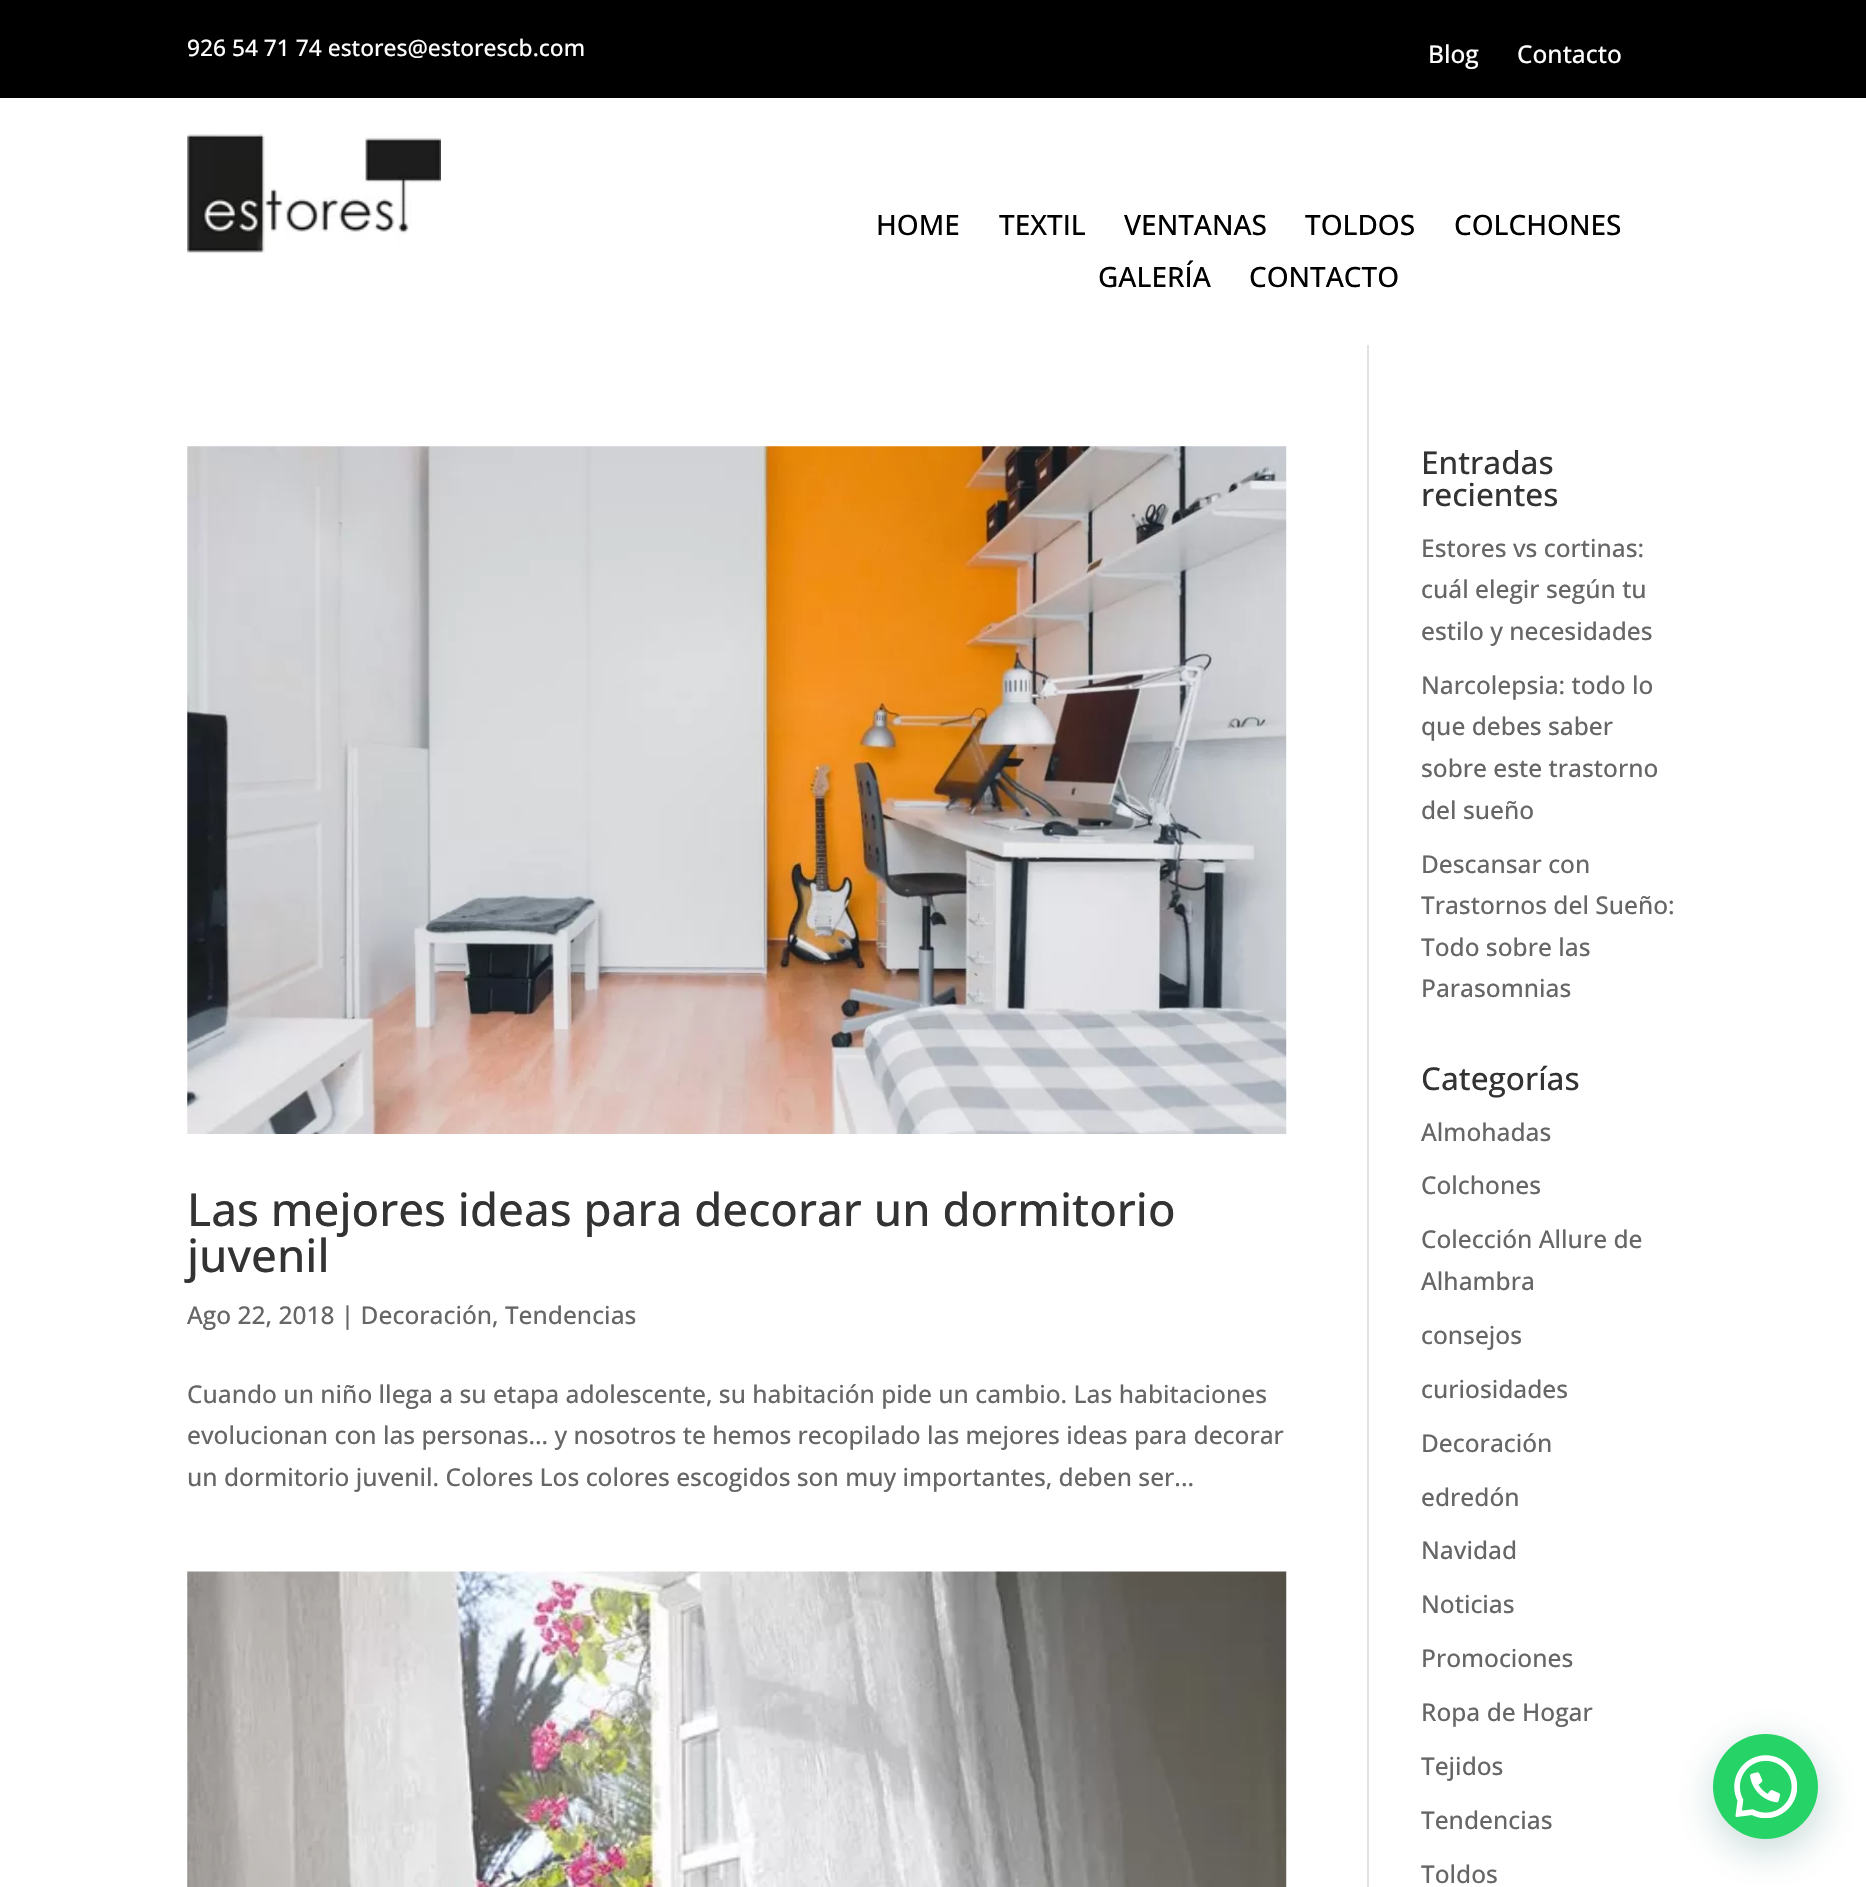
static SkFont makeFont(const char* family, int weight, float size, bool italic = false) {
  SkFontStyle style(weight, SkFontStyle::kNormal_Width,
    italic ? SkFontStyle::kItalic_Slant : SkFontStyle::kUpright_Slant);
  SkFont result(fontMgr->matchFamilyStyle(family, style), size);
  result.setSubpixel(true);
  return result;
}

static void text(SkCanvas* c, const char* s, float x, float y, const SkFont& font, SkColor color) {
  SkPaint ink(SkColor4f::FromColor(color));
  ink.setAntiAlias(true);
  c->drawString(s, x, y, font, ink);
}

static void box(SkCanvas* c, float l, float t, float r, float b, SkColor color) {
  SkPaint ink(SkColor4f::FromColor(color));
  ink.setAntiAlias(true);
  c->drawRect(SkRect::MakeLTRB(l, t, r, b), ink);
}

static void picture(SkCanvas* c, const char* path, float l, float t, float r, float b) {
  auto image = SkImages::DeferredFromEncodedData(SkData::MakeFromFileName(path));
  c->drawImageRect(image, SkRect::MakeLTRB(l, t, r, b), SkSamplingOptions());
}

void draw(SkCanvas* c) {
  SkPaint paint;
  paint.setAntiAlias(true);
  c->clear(0xffffffff);
  box(c, 0, 0, 1866, 98, 0xff000000);
  SkFont face1 = makeFont("Open Sans", 500, 22.75f);
  text(c, "926 54 71 74 estores@estorescb.com", 187, 56, face1, 0xffffffff);
  SkFont face2 = makeFont("Open Sans", 500, 24.5f);
  text(c, "Blog", 1428, 63, face2, 0xffffffff);
  text(c, "Contacto", 1517, 63, face2, 0xffffffff);
  picture(c, "img_01.png", 187, 133, 441, 253);
  SkFont face3 = makeFont("Open Sans", 500, 28);
  text(c, "HOME", 876, 235, face3, 0xff000000);
  text(c, "TEXTIL", 999, 235, face3, 0xff000000);
  text(c, "VENTANAS", 1124, 235, face3, 0xff000000);
  text(c, "TOLDOS", 1305, 235, face3, 0xff000000);
  text(c, "COLCHONES", 1454, 235, face3, 0xff000000);
  text(c, "GALERÍA", 1098, 287, face3, 0xff000000);
  text(c, "CONTACTO", 1249, 287, face3, 0xff000000);
  box(c, 1367, 345, 1369, 1887, 0xffe2e2e2);
  picture(c, "img_02.png", 187, 446, 1287, 1134);
  SkFont face4 = makeFont("Open Sans", 500, 45.5f);
  text(c, "Las mejores ideas para decorar un dormitorio", 187, 1226, face4, 0xff333333);
  text(c, "juvenil", 187, 1272, face4, 0xff333333);
  text(c, "Ago 22, 2018 | Decoración, Tendencias", 187, 1324, face2, 0xff666666);
  text(c, "Cuando un niño llega a su etapa adolescente, su habitación pide un cambio. Las habitaciones", 187, 1403, face2, 0xff666666);
  text(c, "evolucionan con las personas… y nosotros te hemos recopilado las mejores ideas para decorar", 187, 1444, face2, 0xff666666);
  text(c, "un dormitorio juvenil. Colores Los colores escogidos son muy importantes, deben ser...", 187, 1486, face2, 0xff666666);
  picture(c, "img_03.png", 187, 1571, 1287, 1887);
  SkFont face5 = makeFont("Open Sans", 500, 31.5f);
  text(c, "Entradas", 1421, 474, face5, 0xff333333);
  text(c, "recientes", 1421, 506, face5, 0xff333333);
  text(c, "Estores vs cortinas:", 1421, 557, face2, 0xff666666);
  text(c, "cuál elegir según tu", 1421, 598, face2, 0xff666666);
  text(c, "estilo y necesidades", 1421, 640, face2, 0xff666666);
  text(c, "Narcolepsia: todo lo", 1421, 694, face2, 0xff666666);
  text(c, "que debes saber", 1421, 735, face2, 0xff666666);
  text(c, "sobre este trastorno", 1421, 777, face2, 0xff666666);
  text(c, "del sueño", 1421, 819, face2, 0xff666666);
  text(c, "Descansar con", 1421, 873, face2, 0xff666666);
  text(c, "Trastornos del Sueño:", 1421, 914, face2, 0xff666666);
  text(c, "Todo sobre las", 1421, 956, face2, 0xff666666);
  text(c, "Parasomnias", 1421, 997, face2, 0xff666666);
  text(c, "Categorías", 1421, 1090, face5, 0xff333333);
  text(c, "Almohadas", 1421, 1141, face2, 0xff666666);
  text(c, "Colchones", 1421, 1194, face2, 0xff666666);
  text(c, "Colección Allure de", 1421, 1248, face2, 0xff666666);
  text(c, "Alhambra", 1421, 1290, face2, 0xff666666);
  text(c, "consejos", 1421, 1344, face2, 0xff666666);
  text(c, "curiosidades", 1421, 1398, face2, 0xff666666);
  text(c, "Decoración", 1421, 1452, face2, 0xff666666);
  text(c, "edredón", 1421, 1506, face2, 0xff666666);
  text(c, "Navidad", 1421, 1559, face2, 0xff666666);
  text(c, "Noticias", 1421, 1613, face2, 0xff666666);
  text(c, "Promociones", 1421, 1667, face2, 0xff666666);
  text(c, "Ropa de Hogar", 1421, 1721, face2, 0xff666666);
  text(c, "Tejidos", 1421, 1775, face2, 0xff666666);
  text(c, "Tendencias", 1421, 1829, face2, 0xff666666);
  text(c, "Toldos", 1421, 1883, face2, 0xff666666);
  paint.setColor(0x3d075e54);
  paint.setMaskFilter(SkMaskFilter::MakeBlur(kNormal_SkBlurStyle, 21));
  c->drawRoundRect(SkRect::MakeLTRB(1715, 1745, 1820, 1850), 52.5f, 52.5f, paint);
  paint.setMaskFilter(nullptr);
  paint.setColor(0xff25d366);
  c->drawCircle(1765.5f, 1786.5f, 52.5f, paint);
  picture(c, "img_04.png", 1734, 1755, 1797, 1818);
}
